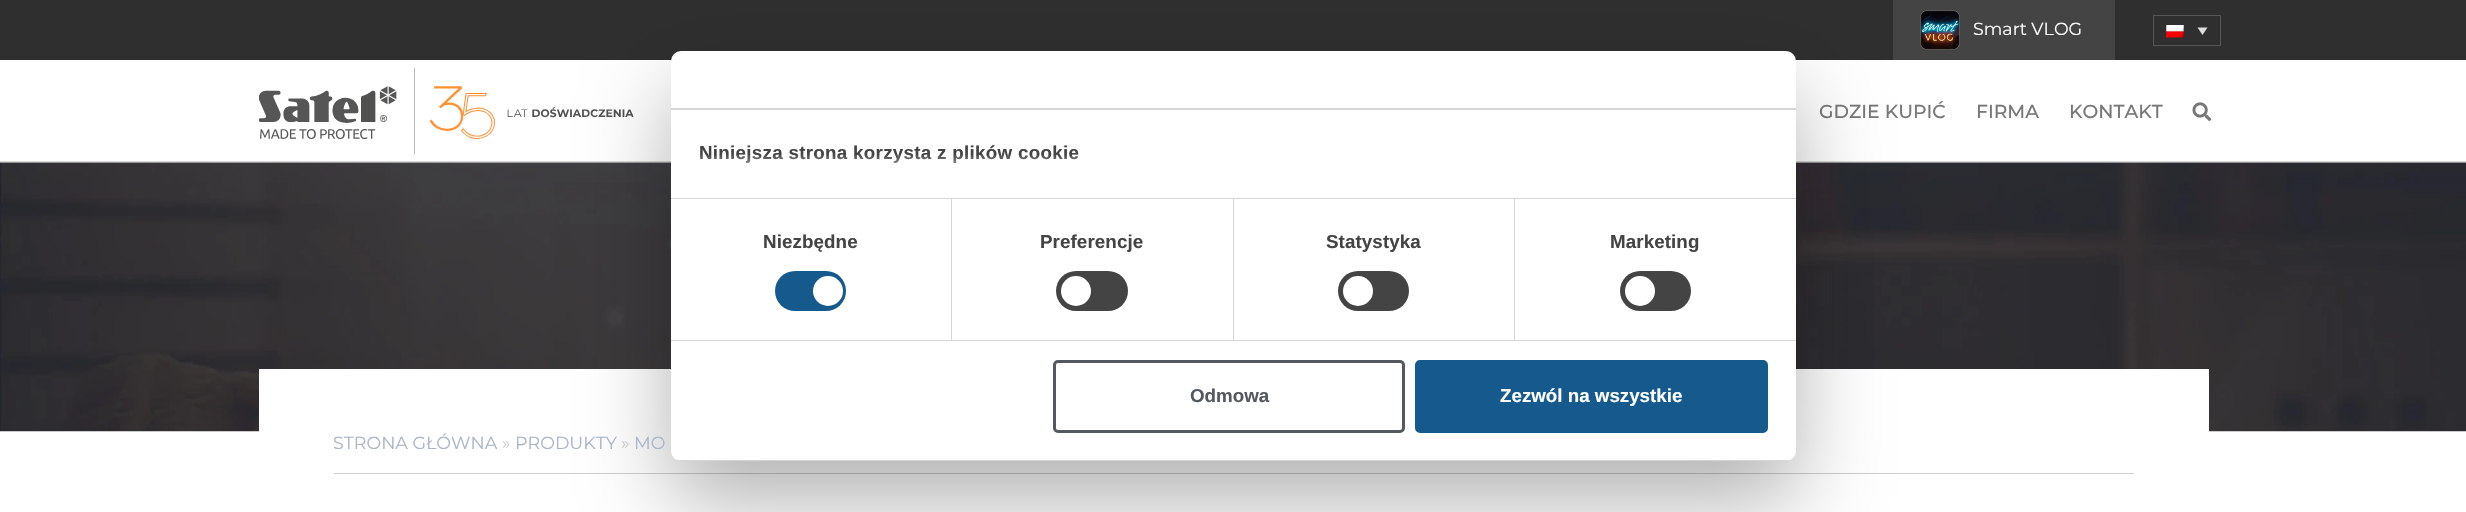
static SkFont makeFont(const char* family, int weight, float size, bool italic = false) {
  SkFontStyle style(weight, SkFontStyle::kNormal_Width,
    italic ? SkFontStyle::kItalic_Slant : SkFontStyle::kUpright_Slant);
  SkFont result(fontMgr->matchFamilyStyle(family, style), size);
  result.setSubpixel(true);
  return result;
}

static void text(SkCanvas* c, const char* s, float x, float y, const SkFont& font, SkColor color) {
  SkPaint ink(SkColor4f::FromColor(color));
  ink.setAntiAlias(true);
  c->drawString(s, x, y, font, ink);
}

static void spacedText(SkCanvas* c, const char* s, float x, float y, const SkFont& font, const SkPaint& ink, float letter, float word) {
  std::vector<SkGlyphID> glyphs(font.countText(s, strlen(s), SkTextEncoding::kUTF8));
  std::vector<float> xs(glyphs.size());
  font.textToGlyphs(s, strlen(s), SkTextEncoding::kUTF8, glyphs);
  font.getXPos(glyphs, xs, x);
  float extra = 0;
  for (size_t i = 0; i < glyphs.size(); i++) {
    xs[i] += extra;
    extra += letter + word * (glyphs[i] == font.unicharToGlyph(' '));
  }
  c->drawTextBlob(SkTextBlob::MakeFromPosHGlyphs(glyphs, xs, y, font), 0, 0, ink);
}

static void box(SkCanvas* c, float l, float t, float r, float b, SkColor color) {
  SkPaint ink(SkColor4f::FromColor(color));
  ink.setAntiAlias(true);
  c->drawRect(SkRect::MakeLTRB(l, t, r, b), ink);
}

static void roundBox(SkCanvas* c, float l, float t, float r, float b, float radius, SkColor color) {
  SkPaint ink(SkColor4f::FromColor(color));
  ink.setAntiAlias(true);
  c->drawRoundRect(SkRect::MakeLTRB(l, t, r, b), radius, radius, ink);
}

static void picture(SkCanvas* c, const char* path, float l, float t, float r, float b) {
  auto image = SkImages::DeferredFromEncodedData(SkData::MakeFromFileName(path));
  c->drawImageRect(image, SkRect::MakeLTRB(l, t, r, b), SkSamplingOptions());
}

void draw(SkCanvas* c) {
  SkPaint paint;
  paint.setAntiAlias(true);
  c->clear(0xffffffff);
  box(c, 0, 0, 2466, 60, 0xff2f2f2f);
  box(c, 1893, 0, 2115, 60, 0xff444444);
  picture(c, "img_01.png", 1920, 10, 1960, 50);
  SkFont face1 = makeFont("Montserrat", 400, 17.5f);
  text(c, "Smart VLOG", 1973, 35, face1, 0xffffffff);
  paint.setStyle(SkPaint::kStroke_Style);
  paint.setStrokeWidth(1);
  paint.setColor(0xff565656);
  c->drawRect(SkRect::MakeLTRB(2153.5f, 15.5f, 2220.5f, 45.5f), paint);
  picture(c, "img_02.png", 2166, 25, 2184, 38);
  paint.setStyle(SkPaint::kFill_Style);
  paint.setColor(0xffdddddd);
  c->drawPath(SkPathBuilder().moveTo(2197.5f, 27.5f).lineTo(2207.5f, 27.5f).lineTo(2202.5f, 35).close().detach(), paint);
  box(c, 0, 161, 2466, 162, 0xffd8d8d8);
  picture(c, "img_03.png", 259, 68, 634, 155);
  SkFont face2 = makeFont("Montserrat", 500, 18.75f);
  text(c, "GDZIE KUPIĆ", 1819, 118, face2, 0xff777777);
  text(c, "FIRMA", 1976, 118, face2, 0xff777777);
  text(c, "KONTAKT", 2069, 118, face2, 0xff777777);
  picture(c, "img_04.png", 2192, 102, 2212, 121);
  picture(c, "img_05.png", 0, 162, 2466, 432);
  box(c, 259, 369, 2209, 432, 0xffffffff);
  box(c, 334, 473, 2134, 474, 0xffcdcdcd);
  paint.setColor(0x4d000000);
  paint.setMaskFilter(SkMaskFilter::MakeBlur(kNormal_SkBlurStyle, 42.5f));
  c->drawRoundRect(SkRect::MakeLTRB(671, 91, 1796, 501), 10, 10, paint);
  paint.setMaskFilter(nullptr);
  roundBox(c, 671, 51, 1796, 461, 10, 0xffffffff);
  box(c, 671, 108, 1796, 110, 0xffd6d6d6);
  box(c, 671, 198, 1796, 199, 0xffd6d6d6);
  SkFont face3 = makeFont("Liberation Sans", 700, 18.75f);
  paint.setColor(0xff444444);
  spacedText(c, "Niniejsza strona korzysta z plików cookie", 699, 159, face3, paint, 0.3f, 0);
  {
    const SkColor colors[] = {0xffffffff, 0xccffffff, 0x00ffffff};
    const float stops[] = {0, 0.5f, 1};
    const SkPoint ends[] = {{1221, 198}, {1221, 154}};
    paint.setShader(SkGradientShader::MakeLinear(ends, colors, stops, 3, SkTileMode::kClamp));
    paint.setAlpha(255);
  }
  c->drawRect(SkRect::MakeLTRB(700, 155, 1078, 163), paint);
  box(c, 671, 340, 1796, 341, 0xffd6d6d6);
  box(c, 951, 199, 952, 340, 0xffd6d6d6);
  paint.setShader(nullptr);
  paint.setColor(0xff444444);
  spacedText(c, "Niezbędne", 763, 248, face3, paint, 0.1f, 0);
  roundBox(c, 775, 271, 846, 311, 20, 0xff165a8d);
  paint.setColor(0xffffffff);
  c->drawCircle(828, 291, 15, paint);
  box(c, 1233, 199, 1234, 340, 0xffd6d6d6);
  paint.setColor(0xff444444);
  spacedText(c, "Preferencje", 1040, 248, face3, paint, 0.1f, 0);
  roundBox(c, 1056, 271, 1128, 311, 20, 0xff444444);
  paint.setColor(0xffffffff);
  c->drawCircle(1076, 291, 15, paint);
  box(c, 1514, 199, 1515, 340, 0xffd6d6d6);
  paint.setColor(0xff444444);
  spacedText(c, "Statystyka", 1326, 248, face3, paint, 0.1f, 0);
  roundBox(c, 1338, 271, 1409, 311, 20, 0xff444444);
  paint.setColor(0xffffffff);
  c->drawCircle(1358, 291, 15, paint);
  paint.setColor(0xff444444);
  spacedText(c, "Marketing", 1610, 248, face3, paint, 0.1f, 0);
  roundBox(c, 1620, 271, 1691, 311, 20, 0xff444444);
  paint.setColor(0xffffffff);
  c->drawCircle(1640, 291, 15, paint);
  c->save();
  c->clipPath(SkPathBuilder().moveTo(681, 51).lineTo(1786, 51).cubicTo(1791.5f, 51, 1796, 55.5f, 1796, 61).lineTo(1796, 451).cubicTo(1796, 456.5f, 1791.5f, 461, 1786, 461).lineTo(681, 461).cubicTo(675.5f, 461, 671, 456.5f, 671, 451).lineTo(671, 61).cubicTo(671, 55.5f, 675.5f, 51, 681, 51).close().detach(), true);
  box(c, 671, 460, 1796, 461, 0xffd6d6d6);
  c->restore();
  paint.setStyle(SkPaint::kStroke_Style);
  paint.setStrokeWidth(3);
  paint.setColor(0xff54595f);
  c->drawRoundRect(SkRect::MakeLTRB(1054.5f, 361.5f, 1403.5f, 431.5f), 3.5f, 3.5f, paint);
  text(c, "Odmowa", 1190, 402, face3, 0xff54595f);
  paint.setStyle(SkPaint::kFill_Style);
  paint.setColor(0xff165a8d);
  c->drawRoundRect(SkRect::MakeLTRB(1416.5f, 361.5f, 1766.5f, 431.5f), 3.5f, 3.5f, paint);
  paint.setStyle(SkPaint::kStroke_Style);
  c->drawRoundRect(SkRect::MakeLTRB(1416.5f, 361.5f, 1766.5f, 431.5f), 3.5f, 3.5f, paint);
  text(c, "Zezwól na wszystkie", 1500, 402, face3, 0xffffffff);
  text(c, "STRONA GŁÓWNA", 333, 449, face1, 0xffaab5c9);
  text(c, "»", 502, 449, face1, 0xffcdcdcd);
  text(c, "PRODUKTY", 515, 449, face1, 0xffaab5c9);
  text(c, "»", 621, 449, face1, 0xffcdcdcd);
  text(c, "MO", 634, 449, face1, 0xffaab5c9);
}
